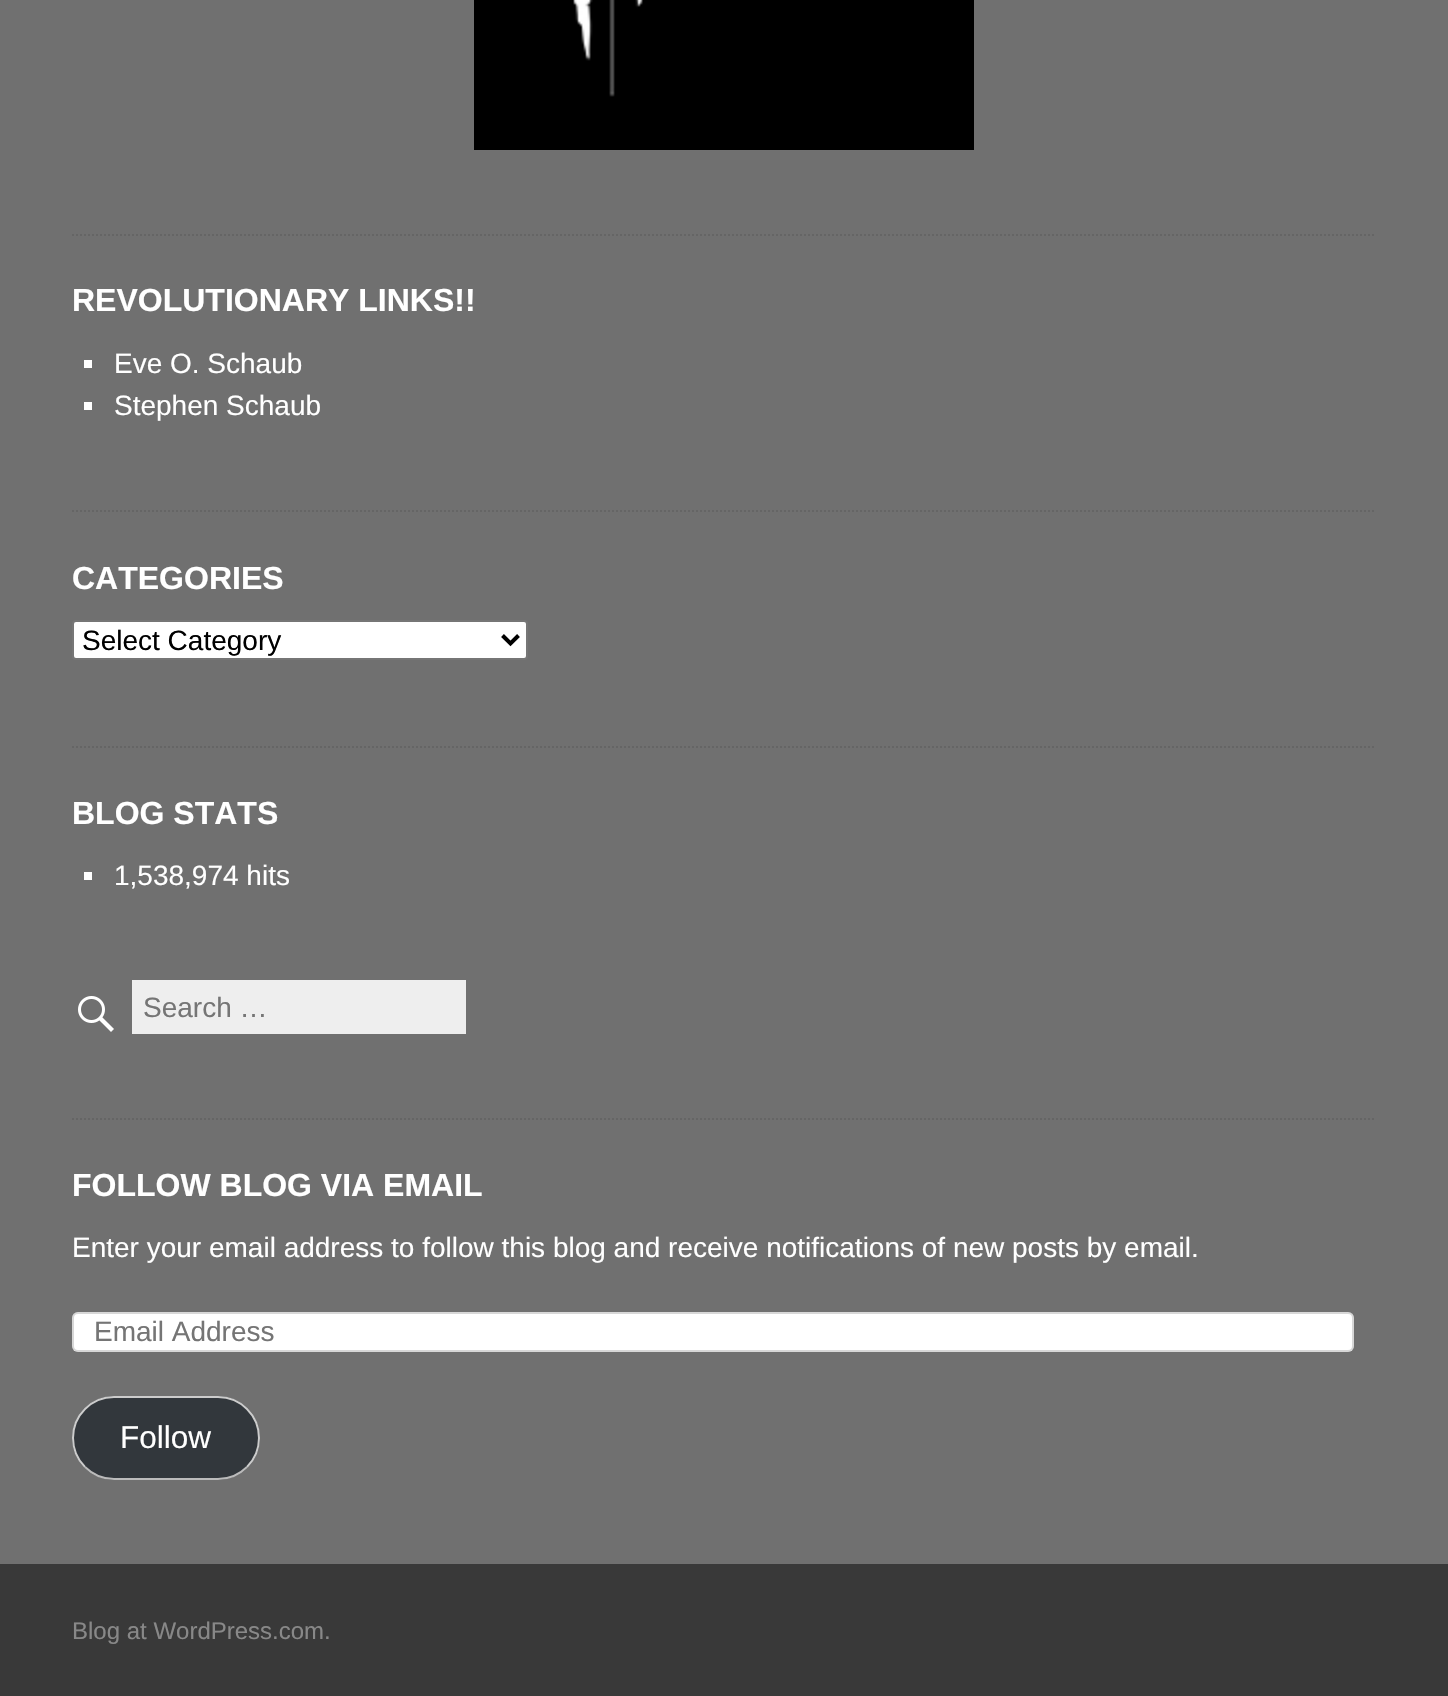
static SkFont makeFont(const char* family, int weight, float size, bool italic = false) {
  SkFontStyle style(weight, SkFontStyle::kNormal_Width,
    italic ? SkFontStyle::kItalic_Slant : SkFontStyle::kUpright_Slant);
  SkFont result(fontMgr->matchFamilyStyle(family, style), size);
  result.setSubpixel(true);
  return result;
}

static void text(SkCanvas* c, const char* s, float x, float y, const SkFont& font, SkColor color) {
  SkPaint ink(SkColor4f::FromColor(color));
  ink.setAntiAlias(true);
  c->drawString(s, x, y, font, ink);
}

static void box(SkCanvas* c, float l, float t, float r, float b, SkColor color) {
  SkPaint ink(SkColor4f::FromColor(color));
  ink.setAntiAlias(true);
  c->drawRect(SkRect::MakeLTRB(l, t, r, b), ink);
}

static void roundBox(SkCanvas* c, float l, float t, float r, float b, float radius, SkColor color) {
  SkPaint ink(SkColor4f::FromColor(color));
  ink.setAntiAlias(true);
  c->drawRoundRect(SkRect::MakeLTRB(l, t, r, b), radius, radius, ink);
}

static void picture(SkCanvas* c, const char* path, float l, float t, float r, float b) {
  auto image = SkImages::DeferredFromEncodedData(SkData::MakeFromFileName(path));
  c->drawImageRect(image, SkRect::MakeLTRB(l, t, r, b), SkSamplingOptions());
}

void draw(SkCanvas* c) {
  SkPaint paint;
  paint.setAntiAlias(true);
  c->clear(0xffffffff);
  {
    const SkColor colors[] = {0xff8d8d8d, 0xff707070};
    const float stops[] = {0, 1};
    paint.setShader(SkGradientShader::MakeRadial({900, -6258}, 560, colors, stops, 2, SkTileMode::kClamp));
    paint.setAlpha(255);
  }
  c->drawRect(SkRect::MakeLTRB(0, 0, 1448, 1564), paint);
  picture(c, "img_01.png", 474, 0, 974, 150);
  paint.setStyle(SkPaint::kStroke_Style);
  paint.setStrokeWidth(2);
  paint.setShader(nullptr);
  paint.setColor(0xff656565);
  paint.setPathEffect(SkDashPathEffect::Make({{2, 2}}, 0));
  c->drawPath(SkPathBuilder().moveTo(72, 235).lineTo(1376, 235).detach(), paint);
  paint.setPathEffect(nullptr);
  SkFont face1 = makeFont("Liberation Sans", 700, 32);
  text(c, "REVOLUTIONARY LINKS!!", 72, 311, face1, 0xffffffff);
  box(c, 84, 360, 92, 368, 0xffffffff);
  SkFont face2 = makeFont("Liberation Sans", 400, 28);
  text(c, "Eve O. Schaub", 114, 373, face2, 0xffffffff);
  box(c, 84, 402, 92, 410, 0xffffffff);
  text(c, "Stephen Schaub", 114, 415, face2, 0xffffffff);
  paint.setPathEffect(SkDashPathEffect::Make({{2, 2}}, 0));
  c->drawPath(SkPathBuilder().moveTo(72, 511).lineTo(1376, 511).detach(), paint);
  paint.setPathEffect(nullptr);
  text(c, "CATEGORIES", 72, 589, face1, 0xffffffff);
  paint.setStyle(SkPaint::kFill_Style);
  paint.setColor(0xffffffff);
  c->drawRoundRect(SkRect::MakeLTRB(73, 621, 527, 659), 3, 3, paint);
  paint.setStyle(SkPaint::kStroke_Style);
  paint.setColor(0xff767676);
  c->drawRoundRect(SkRect::MakeLTRB(73, 621, 527, 659), 3, 3, paint);
  paint.setStrokeWidth(4);
  paint.setColor(0xff000000);
  c->drawPath(SkPathBuilder().moveTo(502.5f, 635.5f).lineTo(510.5f, 643.5f).lineTo(518.5f, 635.5f).detach(), paint);
  text(c, "Select Category", 82, 650, face2, 0xff000000);
  paint.setStrokeWidth(2);
  paint.setColor(0xff656565);
  paint.setPathEffect(SkDashPathEffect::Make({{2, 2}}, 0));
  c->drawPath(SkPathBuilder().moveTo(72, 747).lineTo(1376, 747).detach(), paint);
  paint.setPathEffect(nullptr);
  text(c, "BLOG STATS", 72, 824, face1, 0xffffffff);
  box(c, 84, 872, 92, 880, 0xffffffff);
  text(c, "1,538,974 hits", 114, 885, face2, 0xffffffff);
  picture(c, "img_02.png", 78, 996, 114, 1032);
  box(c, 132, 980, 466, 1034, 0xffeeeeee);
  text(c, "Search …", 143, 1017, face2, 0xff757575);
  paint.setPathEffect(SkDashPathEffect::Make({{2, 2}}, 0));
  c->drawPath(SkPathBuilder().moveTo(72, 1119).lineTo(1376, 1119).detach(), paint);
  paint.setPathEffect(nullptr);
  text(c, "FOLLOW BLOG VIA EMAIL", 72, 1196, face1, 0xffffffff);
  text(c, "Enter your email address to follow this blog and receive notifications of new posts by email.", 72, 1257, face2, 0xffffffff);
  roundBox(c, 72, 1312, 1354, 1352, 6, 0xffffffff);
  paint.setColor(0x33393939);
  c->drawRoundRect(SkRect::MakeLTRB(73, 1313, 1353, 1351), 5, 5, paint);
  text(c, "Email Address", 94, 1341, face2, 0xff757575);
  roundBox(c, 72, 1396, 260, 1480, 42, 0xff32373c);
  paint.setColor(0xffbbbbbb);
  c->drawPath(SkPathBuilder().moveTo(247, 1467).cubicTo(239.5f, 1474.5f, 229, 1479, 218, 1479).lineTo(114, 1479).cubicTo(103, 1479, 92.5f, 1474.5f, 85, 1467).detach(), paint);
  paint.setColor(0xffcccccc);
  c->drawPath(SkPathBuilder().moveTo(85, 1467).cubicTo(77.5f, 1459.5f, 73, 1449, 73, 1438).cubicTo(73, 1427, 77.5f, 1416.5f, 85, 1409).cubicTo(92.5f, 1401.5f, 103, 1397, 114, 1397).lineTo(218, 1397).cubicTo(229, 1397, 239.5f, 1401.5f, 247, 1409).cubicTo(254.5f, 1416.5f, 259, 1427, 259, 1438).cubicTo(259, 1449, 254.5f, 1459.5f, 247, 1467).detach(), paint);
  SkFont face3 = makeFont("Liberation Sans", 400, 31.5f);
  text(c, "Follow", 120, 1448, face3, 0xffffffff);
  box(c, 0, 1564, 1448, 1696, 0xff393939);
  SkFont face4 = makeFont("Liberation Sans", 400, 24);
  text(c, "Blog at WordPress.com.", 72, 1639, face4, 0xff888888);
}
